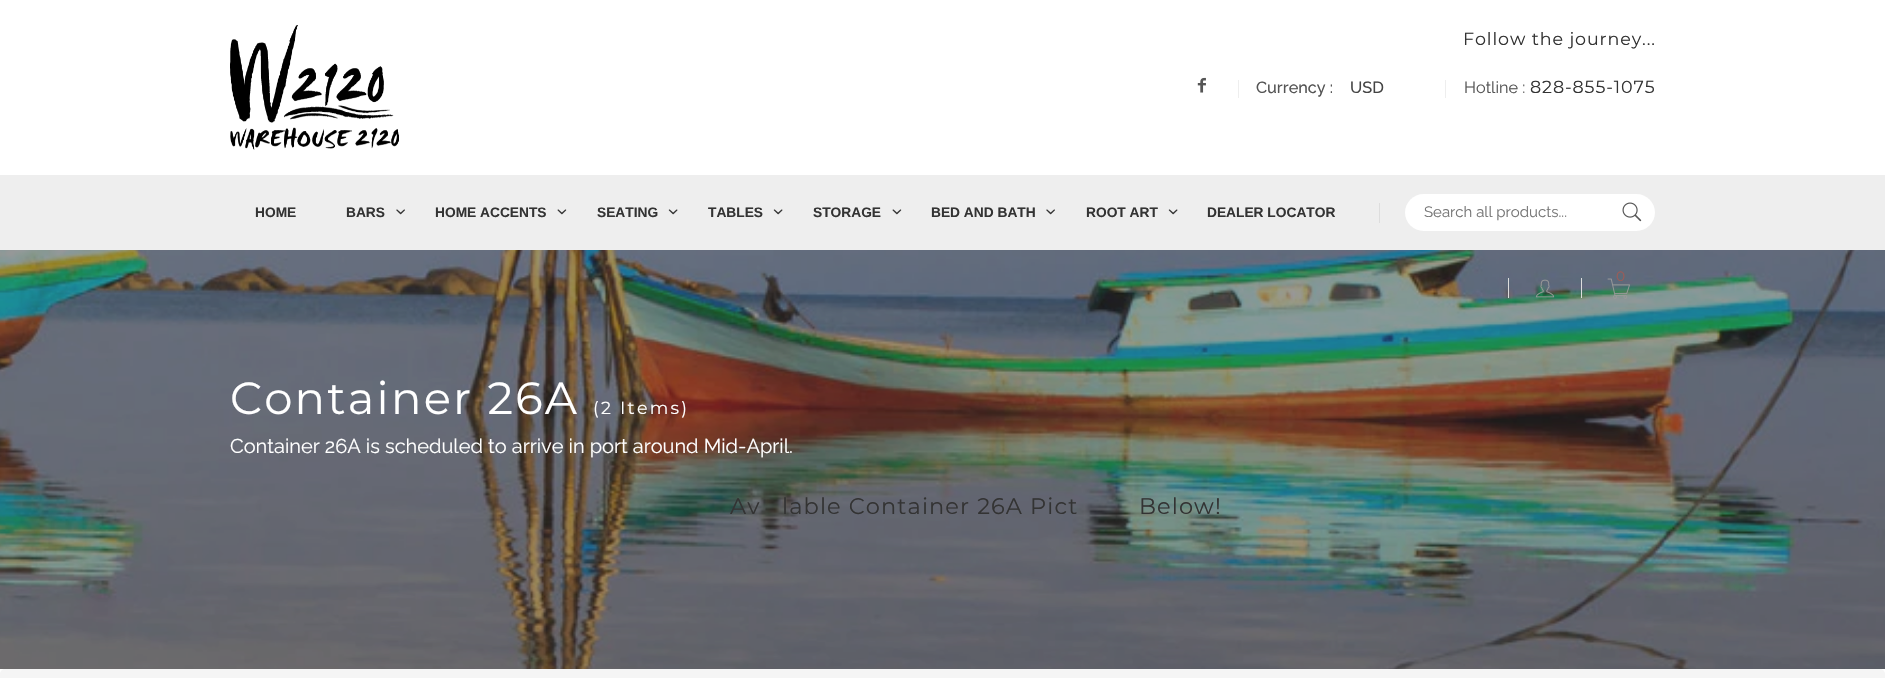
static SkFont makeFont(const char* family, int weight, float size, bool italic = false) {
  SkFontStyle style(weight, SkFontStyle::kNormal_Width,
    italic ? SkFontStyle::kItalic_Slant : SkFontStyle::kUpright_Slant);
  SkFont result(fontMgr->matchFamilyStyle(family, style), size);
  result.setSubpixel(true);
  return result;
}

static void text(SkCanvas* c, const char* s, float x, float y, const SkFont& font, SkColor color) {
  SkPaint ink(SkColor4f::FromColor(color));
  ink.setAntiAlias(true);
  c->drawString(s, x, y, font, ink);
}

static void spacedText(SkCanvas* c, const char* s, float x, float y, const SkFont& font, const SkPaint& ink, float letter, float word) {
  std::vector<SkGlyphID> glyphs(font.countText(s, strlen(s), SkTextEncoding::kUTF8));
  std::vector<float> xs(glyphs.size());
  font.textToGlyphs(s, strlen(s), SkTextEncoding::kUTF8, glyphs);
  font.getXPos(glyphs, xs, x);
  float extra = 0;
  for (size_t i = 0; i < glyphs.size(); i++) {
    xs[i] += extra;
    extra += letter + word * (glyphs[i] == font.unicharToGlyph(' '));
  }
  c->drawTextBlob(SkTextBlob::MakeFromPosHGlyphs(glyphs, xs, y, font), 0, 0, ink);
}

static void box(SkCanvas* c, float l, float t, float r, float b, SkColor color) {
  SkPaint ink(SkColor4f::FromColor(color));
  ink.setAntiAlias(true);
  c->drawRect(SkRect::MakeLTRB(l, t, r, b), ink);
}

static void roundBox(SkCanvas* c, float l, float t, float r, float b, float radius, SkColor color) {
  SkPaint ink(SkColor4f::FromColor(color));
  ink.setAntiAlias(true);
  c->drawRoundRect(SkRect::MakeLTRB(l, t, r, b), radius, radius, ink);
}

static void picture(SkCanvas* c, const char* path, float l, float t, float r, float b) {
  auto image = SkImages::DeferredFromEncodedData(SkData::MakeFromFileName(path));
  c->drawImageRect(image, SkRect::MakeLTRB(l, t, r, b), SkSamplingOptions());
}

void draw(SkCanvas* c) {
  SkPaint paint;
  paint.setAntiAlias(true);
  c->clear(0xffffffff);
  picture(c, "img_01.png", 230, 25, 399, 150);
  SkFont face1 = makeFont("Montserrat", 400, 17.5f);
  paint.setColor(0xff333333);
  spacedText(c, "Follow the journey...", 1463, 45, face1, paint, 0.9f, 0);
  picture(c, "img_02.png", 1197, 77, 1206, 93);
  box(c, 1238, 80, 1239, 98, 0xffeeeeee);
  SkFont face2 = makeFont("Raleway", 500, 16.25f);
  text(c, "Currency :", 1256, 93, face2, 0xff555555);
  text(c, "USD", 1350, 93, face2, 0xff444444);
  box(c, 1445, 80, 1446, 98, 0xffeeeeee);
  SkFont face3 = makeFont("Raleway", 400, 16.25f);
  text(c, "Hotline :", 1464, 93, face3, 0xff555555);
  spacedText(c, "828-855-1075", 1530, 93, face1, paint, 0.9f, 0);
  box(c, 0, 175, 1885, 250, 0xffeeeeee);
  SkFont face4 = makeFont("Liberation Sans", 700, 13.75f);
  text(c, "HOME", 255, 217, face4, 0xff333333);
  text(c, "BARS", 346, 217, face4, 0xff333333);
  picture(c, "img_03.png", 396, 209, 405, 215);
  text(c, "HOME ACCENTS", 435, 217, face4, 0xff333333);
  picture(c, "img_04.png", 557, 209, 567, 215);
  text(c, "SEATING", 597, 217, face4, 0xff333333);
  picture(c, "img_05.png", 668, 209, 678, 215);
  text(c, "TABLES", 708, 217, face4, 0xff333333);
  picture(c, "img_05.png", 773, 209, 783, 215);
  text(c, "STORAGE", 813, 217, face4, 0xff333333);
  picture(c, "img_04.png", 892, 209, 902, 215);
  text(c, "BED AND BATH", 931, 217, face4, 0xff333333);
  picture(c, "img_03.png", 1046, 209, 1055, 215);
  text(c, "ROOT ART", 1086, 217, face4, 0xff333333);
  picture(c, "img_05.png", 1168, 209, 1178, 215);
  text(c, "DEALER LOCATOR", 1207, 217, face4, 0xff333333);
  box(c, 1379, 203, 1380, 223, 0xffdddddd);
  roundBox(c, 1405, 194, 1655, 231, 18.5f, 0xffffffff);
  SkFont face5 = makeFont("Raleway", 400, 15);
  text(c, "Search all products...", 1424, 217, face5, 0xff757575);
  picture(c, "img_06.png", 1622, 202, 1642, 222);
  picture(c, "img_09.png", 0, 250, 1885, 669);
  picture(c, "img_07.png", 1607, 278, 1630, 299);
  SkFont face6 = makeFont("Montserrat", 400, 13.75f);
  paint.setColor(0xff9c5b57);
  spacedText(c, "0", 1616, 281, face6, paint, 1, 0);
  box(c, 1508, 278, 1509, 298, 0xffdddddd);
  picture(c, "img_08.png", 1535, 279, 1555, 298);
  box(c, 1581, 278, 1582, 298, 0xffdddddd);
  SkFont face7 = makeFont("Montserrat", 400, 45);
  paint.setColor(0xffffffff);
  spacedText(c, "Container 26A", 230, 414, face7, paint, 2.25f, 0);
  spacedText(c, "(2 Items)", 593, 414, face1, paint, 2.25f, 0);
  SkFont face8 = makeFont("Raleway", 400, 20);
  text(c, "Container 26A is scheduled to arrive in port around Mid-April.", 230, 453, face8, 0xffffffff);
  SkFont face9 = makeFont("Montserrat", 400, 22.5f);
  paint.setColor(0xff333333);
  spacedText(c, "Av", 730, 514, face9, paint, 1.1f, 0);
  spacedText(c, "lable Container 26A Pict", 782, 514, face9, paint, 1.1f, 0);
  spacedText(c, "Below!", 1139, 514, face9, paint, 1.1f, 0);
  roundBox(c, 0, 669, 1885, 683, 5, 0xfff5f5f5);
}
